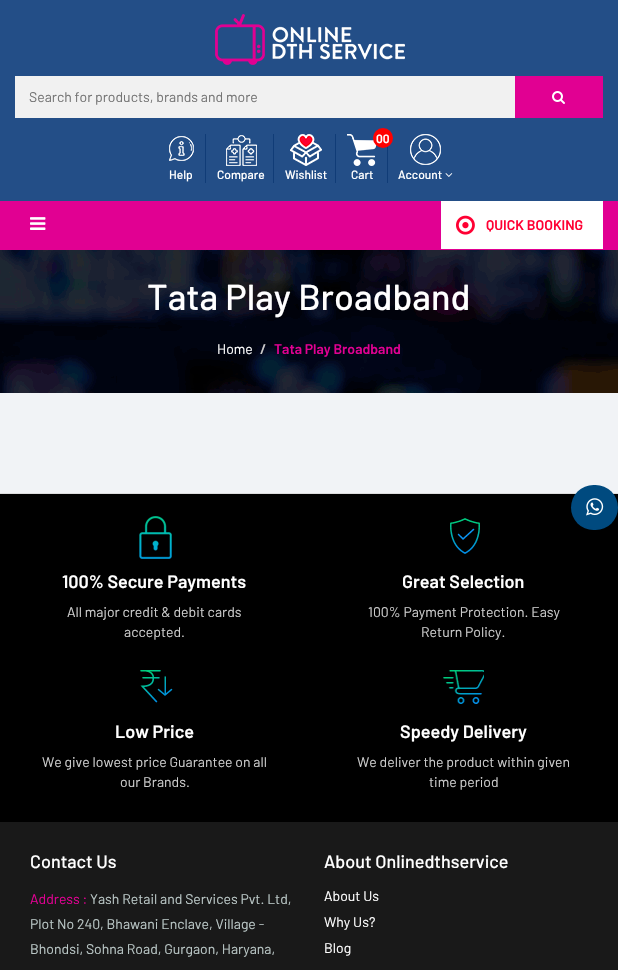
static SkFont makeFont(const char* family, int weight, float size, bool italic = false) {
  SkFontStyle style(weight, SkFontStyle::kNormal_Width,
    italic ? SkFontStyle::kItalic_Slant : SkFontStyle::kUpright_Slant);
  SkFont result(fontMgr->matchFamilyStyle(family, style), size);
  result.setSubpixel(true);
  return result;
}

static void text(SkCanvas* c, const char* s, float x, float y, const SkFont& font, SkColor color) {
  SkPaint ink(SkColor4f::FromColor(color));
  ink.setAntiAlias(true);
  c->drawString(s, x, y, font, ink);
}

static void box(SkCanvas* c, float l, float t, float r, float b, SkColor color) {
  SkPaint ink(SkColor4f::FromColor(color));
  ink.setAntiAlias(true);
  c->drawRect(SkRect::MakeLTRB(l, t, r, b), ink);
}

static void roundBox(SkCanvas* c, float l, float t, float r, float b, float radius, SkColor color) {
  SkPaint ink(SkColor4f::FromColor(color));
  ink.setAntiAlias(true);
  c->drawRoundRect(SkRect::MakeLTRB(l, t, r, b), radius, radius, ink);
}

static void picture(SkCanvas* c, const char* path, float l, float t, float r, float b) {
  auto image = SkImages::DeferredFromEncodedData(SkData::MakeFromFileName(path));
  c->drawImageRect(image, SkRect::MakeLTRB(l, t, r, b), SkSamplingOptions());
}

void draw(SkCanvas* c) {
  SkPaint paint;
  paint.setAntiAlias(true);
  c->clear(0xfff1f3f6);
  box(c, 0, 0, 618, 201, 0xff234e87);
  picture(c, "img_01.png", 215, 14, 405, 65);
  box(c, 15, 76, 515, 118, 0xfff1f1f1);
  SkFont face1 = makeFont("Barlow", 400, 14);
  text(c, "Search for products, brands and more", 29, 102, face1, 0xff757575);
  box(c, 515, 76, 603, 118, 0xffe10092);
  picture(c, "img_02.png", 552, 91, 565, 104);
  box(c, 205, 134, 206, 183, 0xff103c77);
  picture(c, "img_03.png", 169, 136, 194, 161);
  SkFont face2 = makeFont("Barlow", 500, 12);
  text(c, "Help", 169, 179, face2, 0xffffffff);
  box(c, 273, 134, 274, 183, 0xff103c77);
  picture(c, "img_04.png", 226, 135, 257, 166);
  text(c, "Compare", 217, 179, face2, 0xffffffff);
  box(c, 335, 134, 336, 183, 0xff103c77);
  picture(c, "img_05.png", 290, 134, 322, 166);
  text(c, "Wishlist", 285, 179, face2, 0xffffffff);
  box(c, 387, 146, 388, 183, 0xff103c77);
  picture(c, "img_06.png", 347, 134, 377, 166);
  paint.setColor(0xffff0000);
  c->drawCircle(383, 138, 10, paint);
  SkFont face3 = makeFont("Barlow", 600, 12);
  text(c, "00", 376, 143, face3, 0xffffffff);
  text(c, "Cart", 351, 179, face2, 0xffffffff);
  picture(c, "img_07.png", 410, 134, 441, 165);
  text(c, "Account", 398, 179, face2, 0xffffffff);
  picture(c, "img_08.png", 445, 173, 453, 177);
  box(c, 0, 201, 618, 250, 0xffe10092);
  picture(c, "img_09.png", 30, 217, 46, 230);
  box(c, 441, 201, 603, 249, 0xffffffff);
  picture(c, "img_10.png", 456, 215, 475, 235);
  SkFont face4 = makeFont("Barlow", 600, 14);
  text(c, "QUICK BOOKING", 486, 230, face4, 0xffff0033);
  picture(c, "img_11.png", 0, 250, 618, 393);
  SkFont face5 = makeFont("Barlow", 500, 36);
  text(c, "Tata Play Broadband", 147, 310, face5, 0xffffffff);
  text(c, "Home", 217, 354, face1, 0xffffffff);
  text(c, "/", 260, 354, face4, 0xffcccccc);
  text(c, "Tata Play Broadband", 274, 354, face4, 0xffe10092);
  box(c, 0, 494, 618, 822, 0xff000000);
  box(c, 0, 493, 618, 494, 0xffdddddd);
  roundBox(c, 571, 485, 618, 530, 22.5f, 0xff004a7f);
  picture(c, "img_12.png", 586, 498, 604, 516);
  picture(c, "img_13.png", 139, 516, 172, 559);
  SkFont face6 = makeFont("Barlow", 600, 18);
  text(c, "100% Secure Payments", 62, 588, face6, 0xffffffff);
  text(c, "All major credit & debit cards", 67, 617, face1, 0xffcccccc);
  text(c, "accepted.", 124, 637, face1, 0xffcccccc);
  picture(c, "img_14.png", 450, 518, 480, 554);
  text(c, "Great Selection", 402, 588, face6, 0xffffffff);
  text(c, "100% Payment Protection. Easy", 368, 617, face1, 0xffcccccc);
  text(c, "Return Policy.", 421, 637, face1, 0xffcccccc);
  picture(c, "img_15.png", 140, 670, 173, 703);
  text(c, "Low Price", 115, 738, face6, 0xffffffff);
  text(c, "We give lowest price Guarantee on all", 42, 767, face1, 0xffcccccc);
  text(c, "our Brands.", 120, 787, face1, 0xffcccccc);
  picture(c, "img_16.png", 443, 670, 484, 704);
  text(c, "Speedy Delivery", 400, 738, face6, 0xffffffff);
  text(c, "We deliver the product within given", 357, 767, face1, 0xffcccccc);
  text(c, "time period", 429, 787, face1, 0xffcccccc);
  box(c, 0, 822, 618, 970, 0xff191919);
  SkFont face7 = makeFont("Barlow", 500, 18);
  text(c, "Contact Us", 30, 868, face7, 0xffffffff);
  text(c, "Address :", 30, 904, face1, 0xffe10092);
  text(c, "Yash Retail and Services Pvt. Ltd,", 90, 904, face1, 0xffbac7c6);
  text(c, "Plot No 240, Bhawani Enclave, Village -", 30, 929, face1, 0xffbac7c6);
  text(c, "Bhondsi, Sohna Road, Gurgaon, Haryana,", 30, 954, face1, 0xffbac7c6);
  text(c, "About Onlinedthservice", 324, 868, face7, 0xffffffff);
  text(c, "About Us", 324, 901, face1, 0xffffffff);
  text(c, "Why Us?", 324, 927, face1, 0xffffffff);
  text(c, "Blog", 324, 953, face1, 0xffffffff);
}
